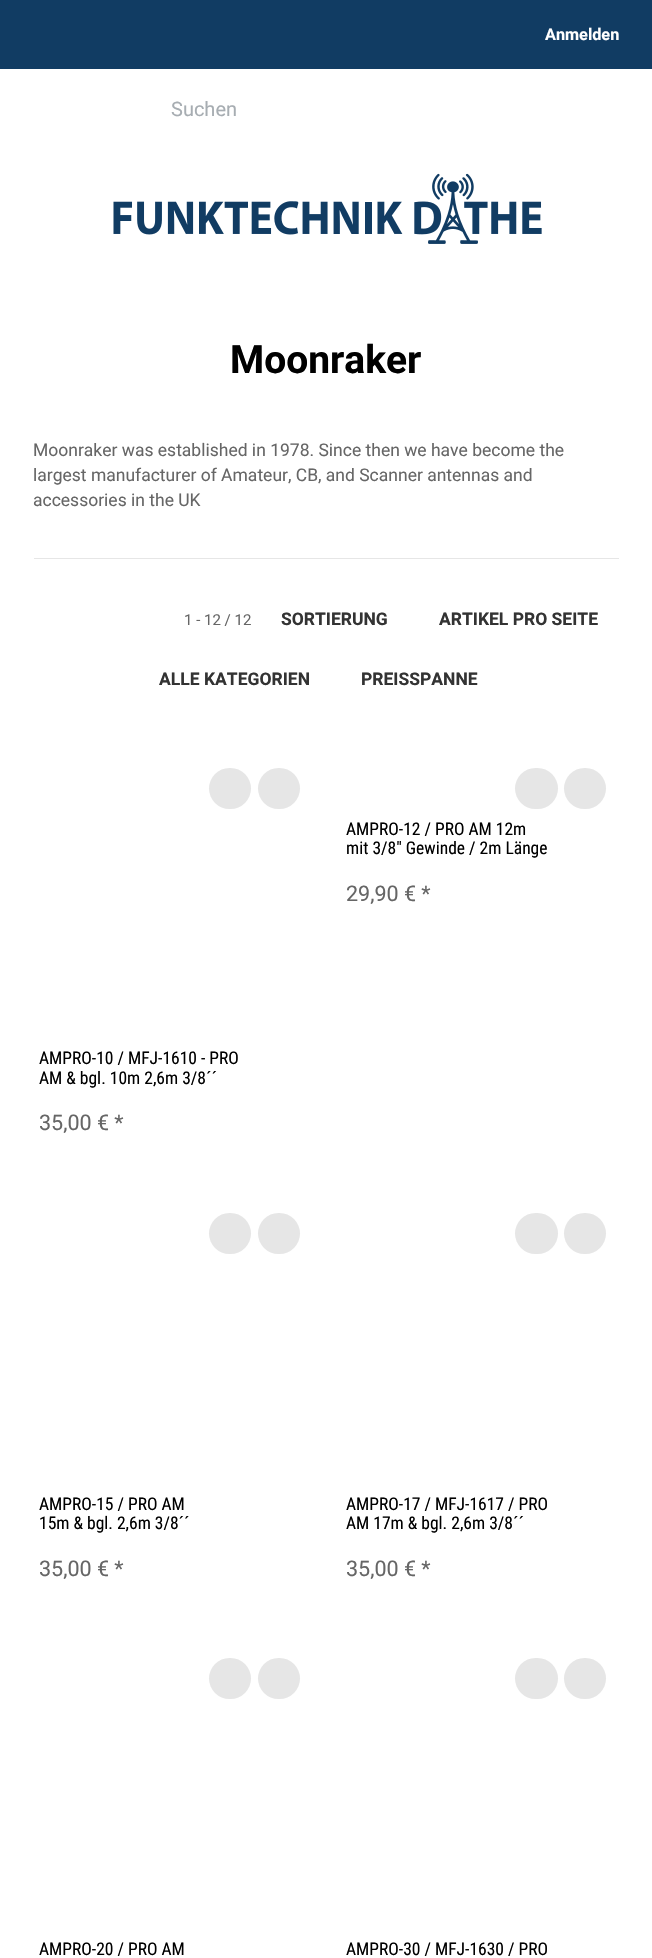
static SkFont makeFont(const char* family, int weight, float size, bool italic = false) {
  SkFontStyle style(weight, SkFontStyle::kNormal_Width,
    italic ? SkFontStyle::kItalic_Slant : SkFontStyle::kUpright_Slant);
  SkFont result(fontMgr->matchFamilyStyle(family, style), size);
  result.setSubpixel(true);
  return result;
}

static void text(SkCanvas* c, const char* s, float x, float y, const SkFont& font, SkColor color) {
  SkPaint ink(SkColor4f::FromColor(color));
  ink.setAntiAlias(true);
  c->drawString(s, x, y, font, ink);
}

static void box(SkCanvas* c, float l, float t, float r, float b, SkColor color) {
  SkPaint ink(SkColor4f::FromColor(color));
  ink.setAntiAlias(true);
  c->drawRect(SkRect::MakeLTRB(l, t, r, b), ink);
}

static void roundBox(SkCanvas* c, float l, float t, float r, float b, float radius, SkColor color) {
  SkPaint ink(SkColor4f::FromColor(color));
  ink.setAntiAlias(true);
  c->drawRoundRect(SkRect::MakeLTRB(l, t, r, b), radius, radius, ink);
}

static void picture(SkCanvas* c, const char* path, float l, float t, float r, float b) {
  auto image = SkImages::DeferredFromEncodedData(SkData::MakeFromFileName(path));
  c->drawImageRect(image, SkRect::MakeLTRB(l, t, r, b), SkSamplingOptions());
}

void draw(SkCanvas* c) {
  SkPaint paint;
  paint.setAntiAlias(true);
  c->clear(0xffffffff);
  box(c, 0, 0, 652, 69, 0xff113c63);
  SkFont face1 = makeFont("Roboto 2", 700, 16.25f);
  text(c, "Anmelden", 545, 40, face1, 0xffffffff);
  SkFont face2 = makeFont("Roboto", 400, 20);
  text(c, "Suchen", 171, 116, face2, 0xffa7adb2);
  picture(c, "img_01.png", 113, 173, 542, 244);
  SkFont face3 = makeFont("Roboto", 700, 39);
  text(c, "Moonraker", 230, 373, face3, 0xff000000);
  SkFont face4 = makeFont("Roboto", 400, 17.5f);
  text(c, "Moonraker was established in 1978. Since then we have become the", 33, 456, face4, 0xff666666);
  text(c, "largest manufacturer of Amateur, CB, and Scanner antennas and", 33, 481, face4, 0xff666666);
  text(c, "accessories in the UK", 33, 506, face4, 0xff666666);
  box(c, 34, 558, 619, 559, 0xffe6e6e6);
  SkFont face5 = makeFont("Roboto", 400, 15);
  text(c, "1 - 12 / 12", 184, 625, face5, 0xff666666);
  SkFont face6 = makeFont("Roboto 2", 700, 17.5f);
  text(c, "SORTIERUNG", 281, 625, face6, 0xff333333);
  text(c, "ARTIKEL PRO SEITE", 439, 625, face6, 0xff333333);
  text(c, "ALLE KATEGORIEN", 159, 685, face6, 0xff333333);
  text(c, "PREISSPANNE", 361, 685, face6, 0xff333333);
  roundBox(c, 515, 768, 558, 809, 20.5f, 0xffe6e6e6);
  roundBox(c, 564, 768, 606, 809, 20.5f, 0xffe6e6e6);
  SkFont face7 = makeFont("Roboto Condensed", 400, 17.5f);
  text(c, "AMPRO-12 / PRO AM 12m", 346, 835, face7, 0xff000000);
  text(c, "mit 3/8\" Gewinde / 2m Länge", 346, 854, face7, 0xff000000);
  SkFont face8 = makeFont("Roboto", 400, 21.5f);
  text(c, "29,90 € *", 346, 901, face8, 0xff666666);
  roundBox(c, 209, 768, 251, 809, 20.5f, 0xffe6e6e6);
  roundBox(c, 258, 768, 300, 809, 20.5f, 0xffe6e6e6);
  text(c, "AMPRO-10 / MFJ-1610 - PRO", 39, 1064, face7, 0xff000000);
  text(c, "AM & bgl. 10m 2,6m 3/8´´", 39, 1084, face7, 0xff000000);
  text(c, "35,00 € *", 39, 1130, face8, 0xff666666);
  roundBox(c, 209, 1213, 251, 1254, 20.5f, 0xffe6e6e6);
  roundBox(c, 258, 1213, 300, 1254, 20.5f, 0xffe6e6e6);
  text(c, "AMPRO-15 / PRO AM", 39, 1510, face7, 0xff000000);
  text(c, "15m & bgl. 2,6m 3/8´´", 39, 1529, face7, 0xff000000);
  text(c, "35,00 € *", 39, 1576, face8, 0xff666666);
  roundBox(c, 515, 1213, 558, 1254, 20.5f, 0xffe6e6e6);
  roundBox(c, 564, 1213, 606, 1254, 20.5f, 0xffe6e6e6);
  text(c, "AMPRO-17 / MFJ-1617 / PRO", 346, 1510, face7, 0xff000000);
  text(c, "AM 17m & bgl. 2,6m 3/8´´", 346, 1529, face7, 0xff000000);
  text(c, "35,00 € *", 346, 1576, face8, 0xff666666);
  roundBox(c, 209, 1658, 251, 1699, 20.5f, 0xffe6e6e6);
  roundBox(c, 258, 1658, 300, 1699, 20.5f, 0xffe6e6e6);
  text(c, "AMPRO-20 / PRO AM", 39, 1955, face7, 0xff000000);
  roundBox(c, 515, 1658, 558, 1699, 20.5f, 0xffe6e6e6);
  roundBox(c, 564, 1658, 606, 1699, 20.5f, 0xffe6e6e6);
  text(c, "AMPRO-30 / MFJ-1630 / PRO", 346, 1955, face7, 0xff000000);
}
